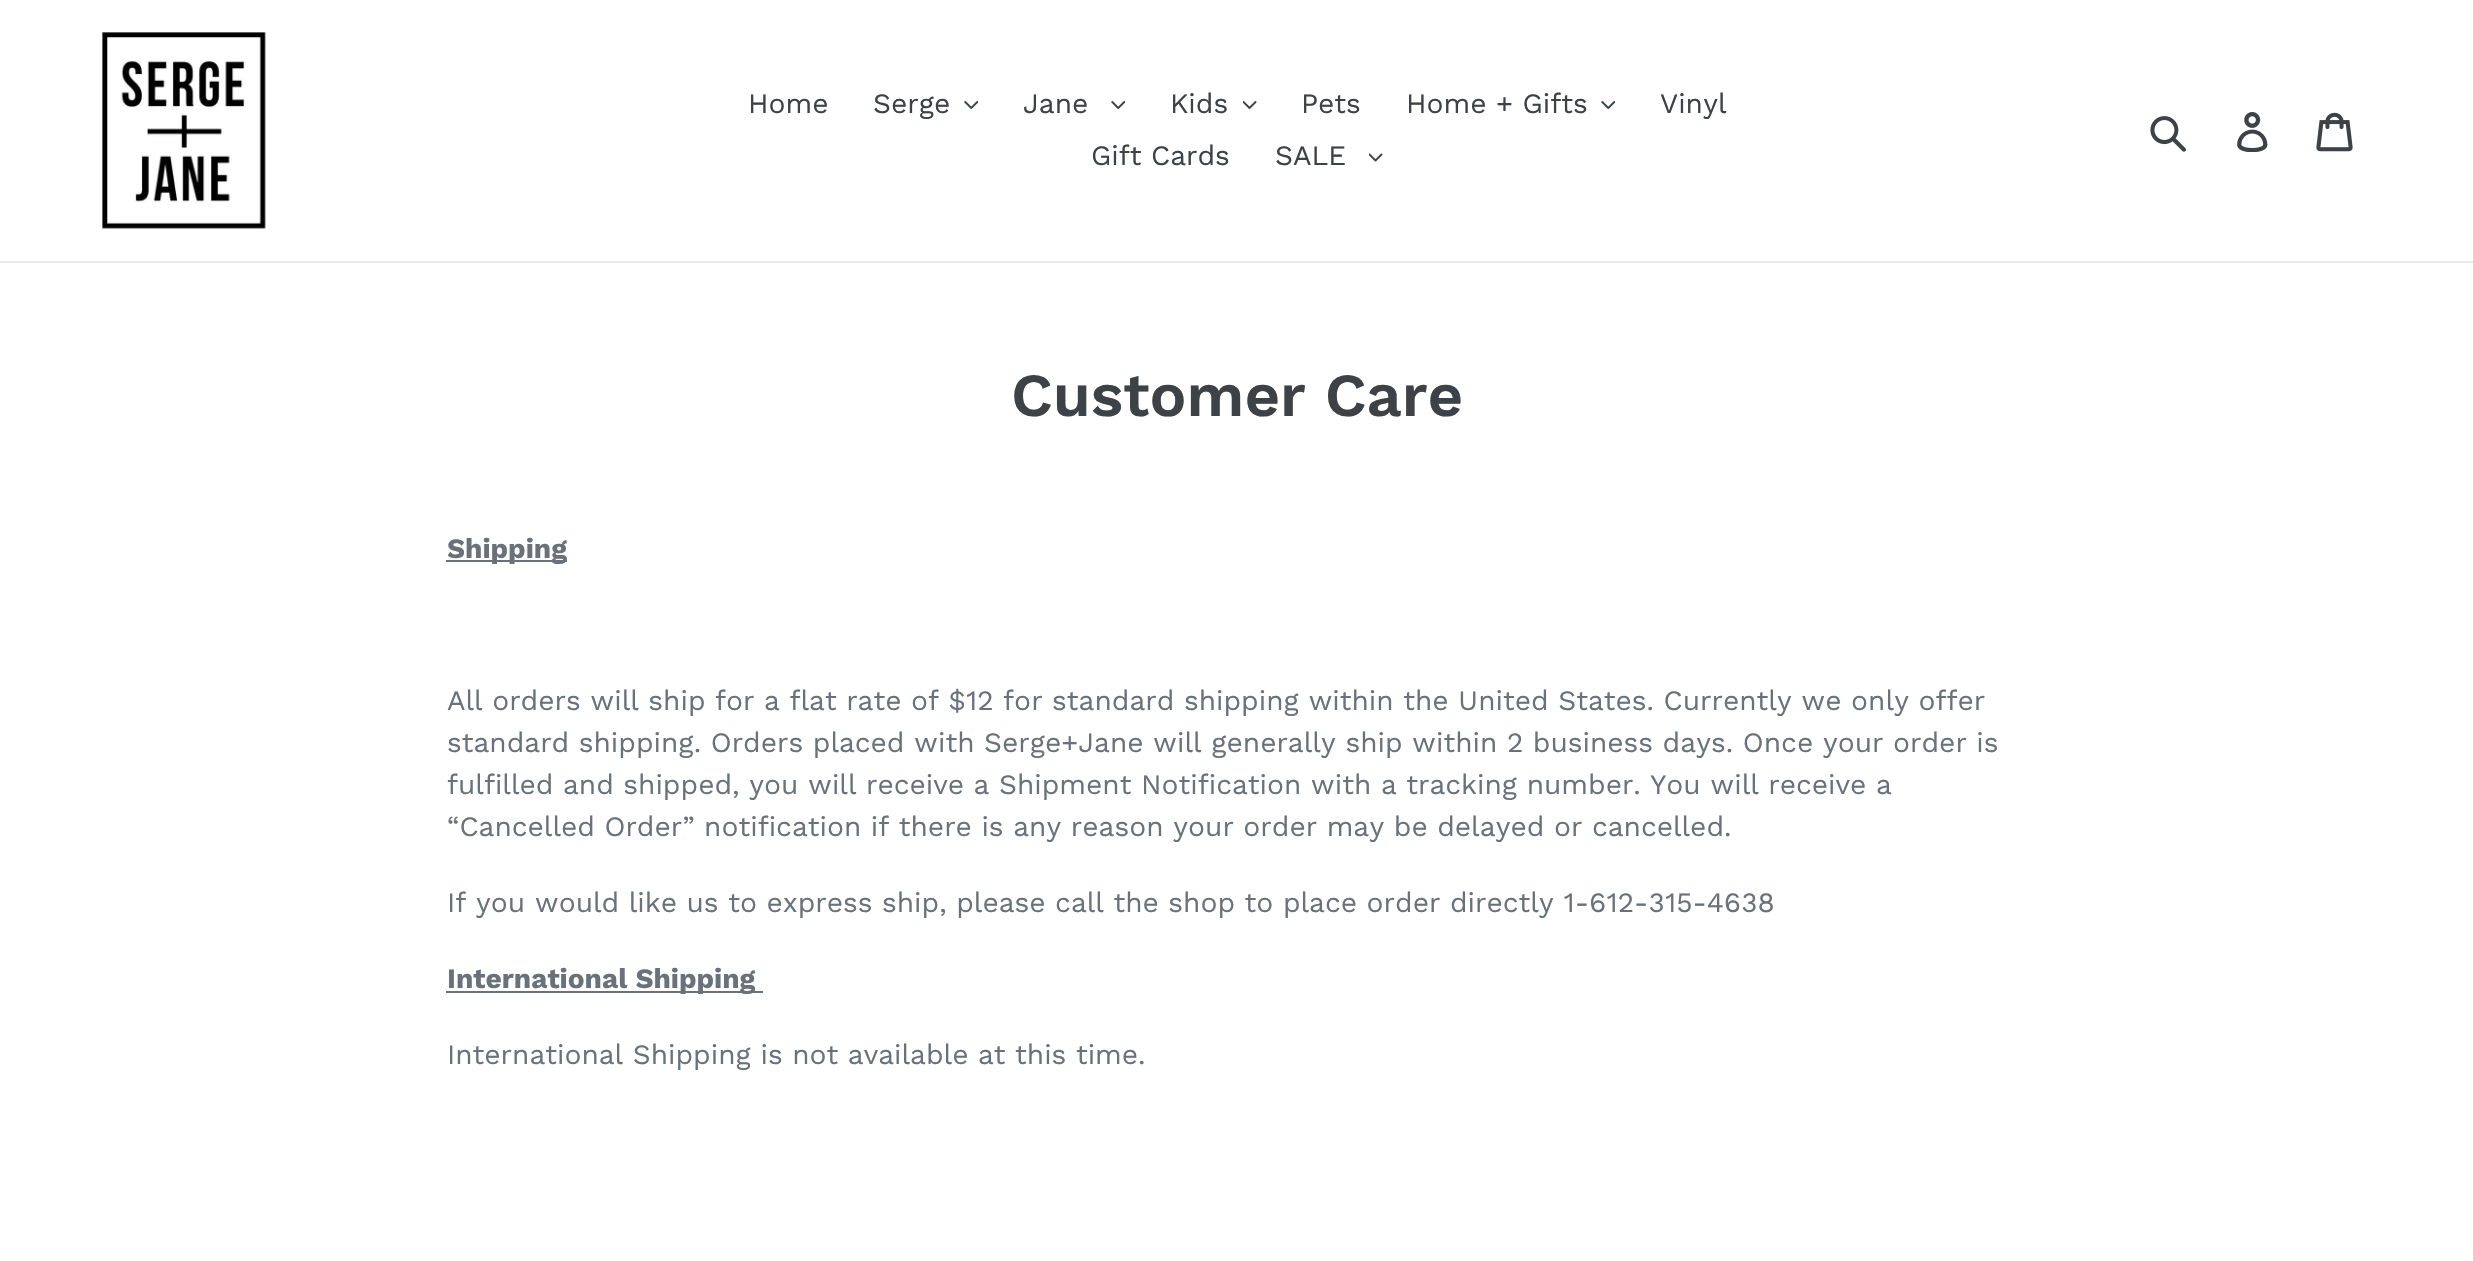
static SkFont makeFont(const char* family, int weight, float size, bool italic = false) {
  SkFontStyle style(weight, SkFontStyle::kNormal_Width,
    italic ? SkFontStyle::kItalic_Slant : SkFontStyle::kUpright_Slant);
  SkFont result(fontMgr->matchFamilyStyle(family, style), size);
  result.setSubpixel(true);
  return result;
}

static void text(SkCanvas* c, const char* s, float x, float y, const SkFont& font, SkColor color) {
  SkPaint ink(SkColor4f::FromColor(color));
  ink.setAntiAlias(true);
  c->drawString(s, x, y, font, ink);
}

static void box(SkCanvas* c, float l, float t, float r, float b, SkColor color) {
  SkPaint ink(SkColor4f::FromColor(color));
  ink.setAntiAlias(true);
  c->drawRect(SkRect::MakeLTRB(l, t, r, b), ink);
}

static void picture(SkCanvas* c, const char* path, float l, float t, float r, float b) {
  auto image = SkImages::DeferredFromEncodedData(SkData::MakeFromFileName(path));
  c->drawImageRect(image, SkRect::MakeLTRB(l, t, r, b), SkSamplingOptions());
}

void draw(SkCanvas* c) {
  SkPaint paint;
  paint.setAntiAlias(true);
  c->clear(0xffffffff);
  box(c, 0, 261, 2473, 263, 0xffe8e9eb);
  picture(c, "img_01.png", 102, 32, 267, 229);
  SkFont face1 = makeFont("Work Sans", 400, 28);
  text(c, "Home", 748, 113, face1, 0xff3d4246);
  text(c, "Serge", 873, 113, face1, 0xff3d4246);
  picture(c, "img_02.png", 964, 101, 978, 109);
  text(c, "Jane", 1023, 113, face1, 0xff3d4246);
  picture(c, "img_02.png", 1111, 101, 1125, 109);
  text(c, "Kids", 1170, 113, face1, 0xff3d4246);
  picture(c, "img_03.png", 1243, 101, 1257, 109);
  text(c, "Pets", 1301, 113, face1, 0xff3d4246);
  text(c, "Home + Gifts", 1406, 113, face1, 0xff3d4246);
  picture(c, "img_02.png", 1601, 101, 1615, 109);
  text(c, "Vinyl", 1660, 113, face1, 0xff3d4246);
  text(c, "Gift Cards", 1091, 165, face1, 0xff3d4246);
  text(c, "SALE", 1275, 165, face1, 0xff3d4246);
  picture(c, "img_04.png", 1369, 153, 1383, 162);
  picture(c, "img_05.png", 2150, 116, 2186, 152);
  picture(c, "img_06.png", 2237, 112, 2268, 152);
  picture(c, "img_07.png", 2316, 112, 2353, 152);
  SkFont face2 = makeFont("Work Sans", 600, 61.25f);
  text(c, "Customer Care", 1011, 416, face2, 0xff3d4246);
  box(c, 446, 560, 567, 562, 0xff69727b);
  SkFont face3 = makeFont("Work Sans", 700, 28);
  text(c, "Shipping", 447, 558, face3, 0xff69727b);
  text(c, "All orders will ship for a flat rate of $12 for standard shipping within the United States. Currently we only offer", 447, 710, face1, 0xff69727b);
  text(c, "standard shipping. Orders placed with Serge+Jane will generally ship within 2 business days. Once your order is", 447, 752, face1, 0xff69727b);
  text(c, "fulfilled and shipped, you will receive a Shipment Notification with a tracking number. You will receive a", 447, 794, face1, 0xff69727b);
  text(c, "“Cancelled Order” notification if there is any reason your order may be delayed or cancelled.", 447, 836, face1, 0xff69727b);
  text(c, "If you would like us to express ship, please call the shop to place order directly 1-612-315-4638", 447, 912, face1, 0xff69727b);
  box(c, 446, 991, 763, 993, 0xff69727b);
  text(c, "International Shipping", 447, 988, face3, 0xff69727b);
  text(c, "International Shipping is not available at this time.", 447, 1064, face1, 0xff69727b);
}
